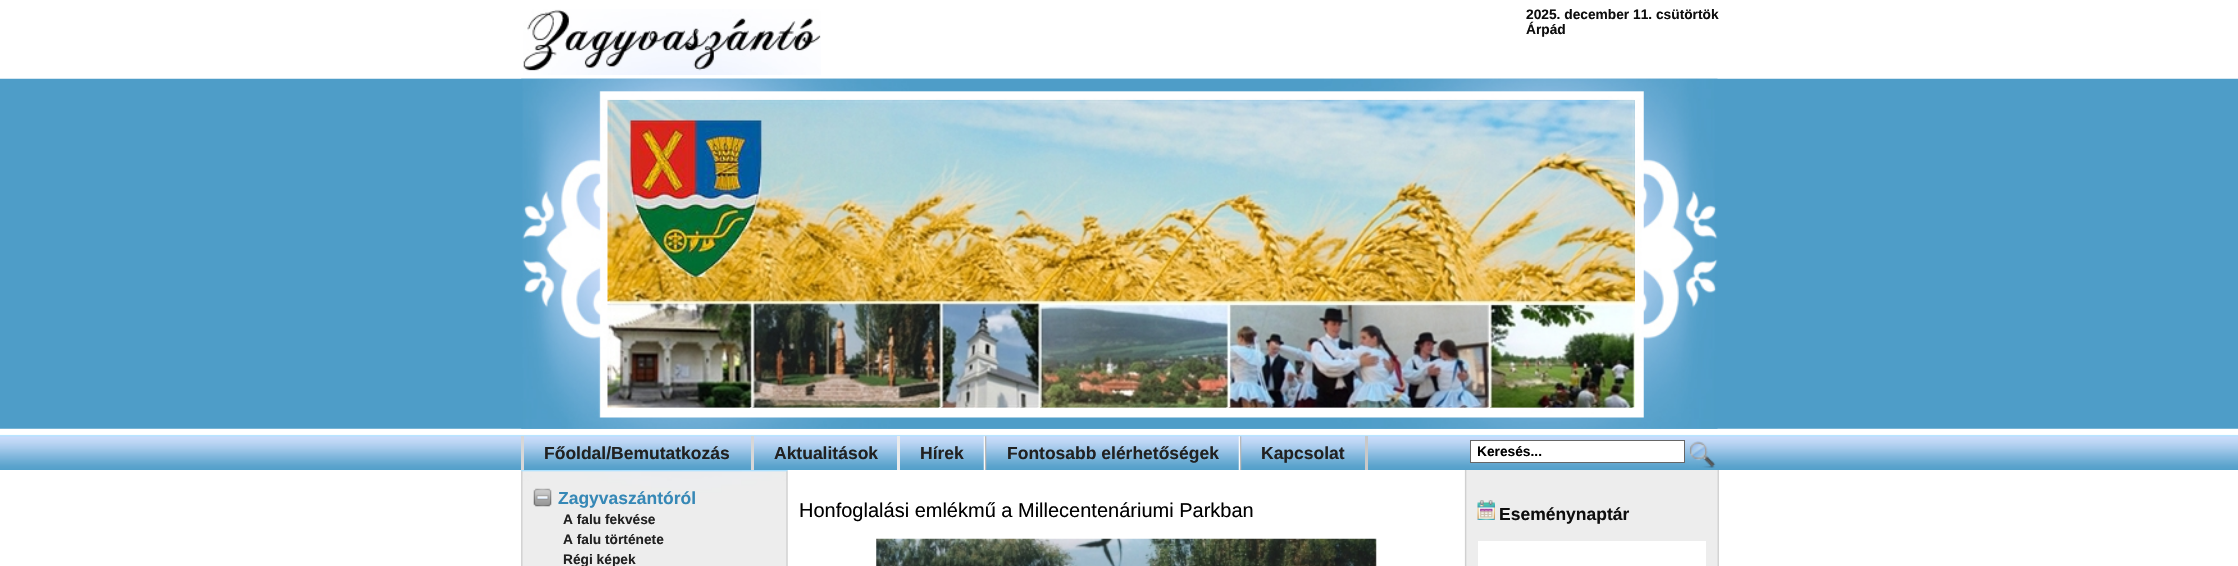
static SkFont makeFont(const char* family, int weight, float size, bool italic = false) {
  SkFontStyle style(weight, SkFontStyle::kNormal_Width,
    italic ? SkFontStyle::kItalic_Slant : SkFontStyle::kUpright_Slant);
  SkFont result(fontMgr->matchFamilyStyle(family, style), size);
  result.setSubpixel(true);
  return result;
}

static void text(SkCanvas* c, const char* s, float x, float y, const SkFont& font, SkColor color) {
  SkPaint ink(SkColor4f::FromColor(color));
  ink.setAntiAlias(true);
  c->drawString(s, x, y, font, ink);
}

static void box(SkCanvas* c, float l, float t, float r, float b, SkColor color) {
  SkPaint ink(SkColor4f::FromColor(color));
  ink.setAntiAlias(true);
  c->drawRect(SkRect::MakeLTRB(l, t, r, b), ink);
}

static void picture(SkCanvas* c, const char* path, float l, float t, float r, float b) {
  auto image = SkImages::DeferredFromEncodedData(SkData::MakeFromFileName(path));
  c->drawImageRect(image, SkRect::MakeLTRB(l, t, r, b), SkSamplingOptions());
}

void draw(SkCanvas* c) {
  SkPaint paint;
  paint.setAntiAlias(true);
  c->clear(0xffffffff);
  picture(c, "img_01.png", 0, 78, 2238, 470);
  picture(c, "img_02.png", 523, 9, 821, 75);
  SkFont face1 = makeFont("Liberation Sans", 700, 13.75f);
  text(c, "2025. december 11. csütörtök", 1526, 19, face1, 0xff0e0e0e);
  text(c, "Árpád", 1526, 34, face1, 0xff0e0e0e);
  picture(c, "img_03.png", 521, 78, 1718, 429);
  picture(c, "img_04.png", 610, 100, 1635, 408);
  box(c, 521, 436, 524, 470, 0xffd7d7d7);
  SkFont face2 = makeFont("Liberation Sans", 700, 17.5f);
  text(c, "Főoldal/Bemutatkozás", 544, 459, face2, 0xff212121);
  box(c, 751, 436, 754, 470, 0xffd7d7d7);
  text(c, "Aktualitások", 774, 459, face2, 0xff212121);
  box(c, 897, 436, 900, 470, 0xffebebeb);
  text(c, "Hírek", 920, 459, face2, 0xff212121);
  picture(c, "img_05.png", 983, 436, 987, 470);
  text(c, "Fontosabb elérhetőségek", 1007, 459, face2, 0xff212121);
  picture(c, "img_05.png", 1238, 436, 1242, 470);
  text(c, "Kapcsolat", 1261, 459, face2, 0xff212121);
  box(c, 1365, 436, 1368, 470, 0xffc8c8c8);
  paint.setColor(0xffffffff);
  c->drawRect(SkRect::MakeLTRB(1470.5f, 440.5f, 1684.5f, 462.5f), paint);
  paint.setStyle(SkPaint::kStroke_Style);
  paint.setStrokeWidth(1);
  paint.setColor(0xff666666);
  c->drawRect(SkRect::MakeLTRB(1470.5f, 440.5f, 1684.5f, 462.5f), paint);
  c->save();
  c->clipRect(SkRect::MakeLTRB(1478, 444, 1678, 459));
  text(c, "Keresés...", 1477, 456, face1, 0xff000000);
  c->restore();
  picture(c, "img_06.png", 1689, 441, 1716, 468);
  picture(c, "img_07.png", 521, 470, 1719, 566);
  picture(c, "img_08.png", 521, 470, 788, 566);
  picture(c, "img_09.png", 533, 488, 552, 507);
  text(c, "Zagyvaszántóról", 558, 504, face2, 0xff3688b6);
  text(c, "A falu fekvése", 563, 524, face1, 0xff212121);
  text(c, "A falu története", 563, 544, face1, 0xff212121);
  text(c, "Régi képek", 563, 564, face1, 0xff212121);
  SkFont face3 = makeFont("Liberation Sans", 400, 20);
  text(c, "Honfoglalási emlékmű a Millecentenáriumi Parkban", 799, 517, face3, 0xff000000);
  picture(c, "img_10.png", 876, 538, 1377, 566);
  picture(c, "img_11.png", 1465, 470, 1719, 566);
  picture(c, "img_12.png", 1477, 500, 1495, 520);
  text(c, "Eseménynaptár", 1499, 520, face2, 0xff0e0e0e);
  box(c, 1478, 541, 1706, 566, 0xffffffff);
}
